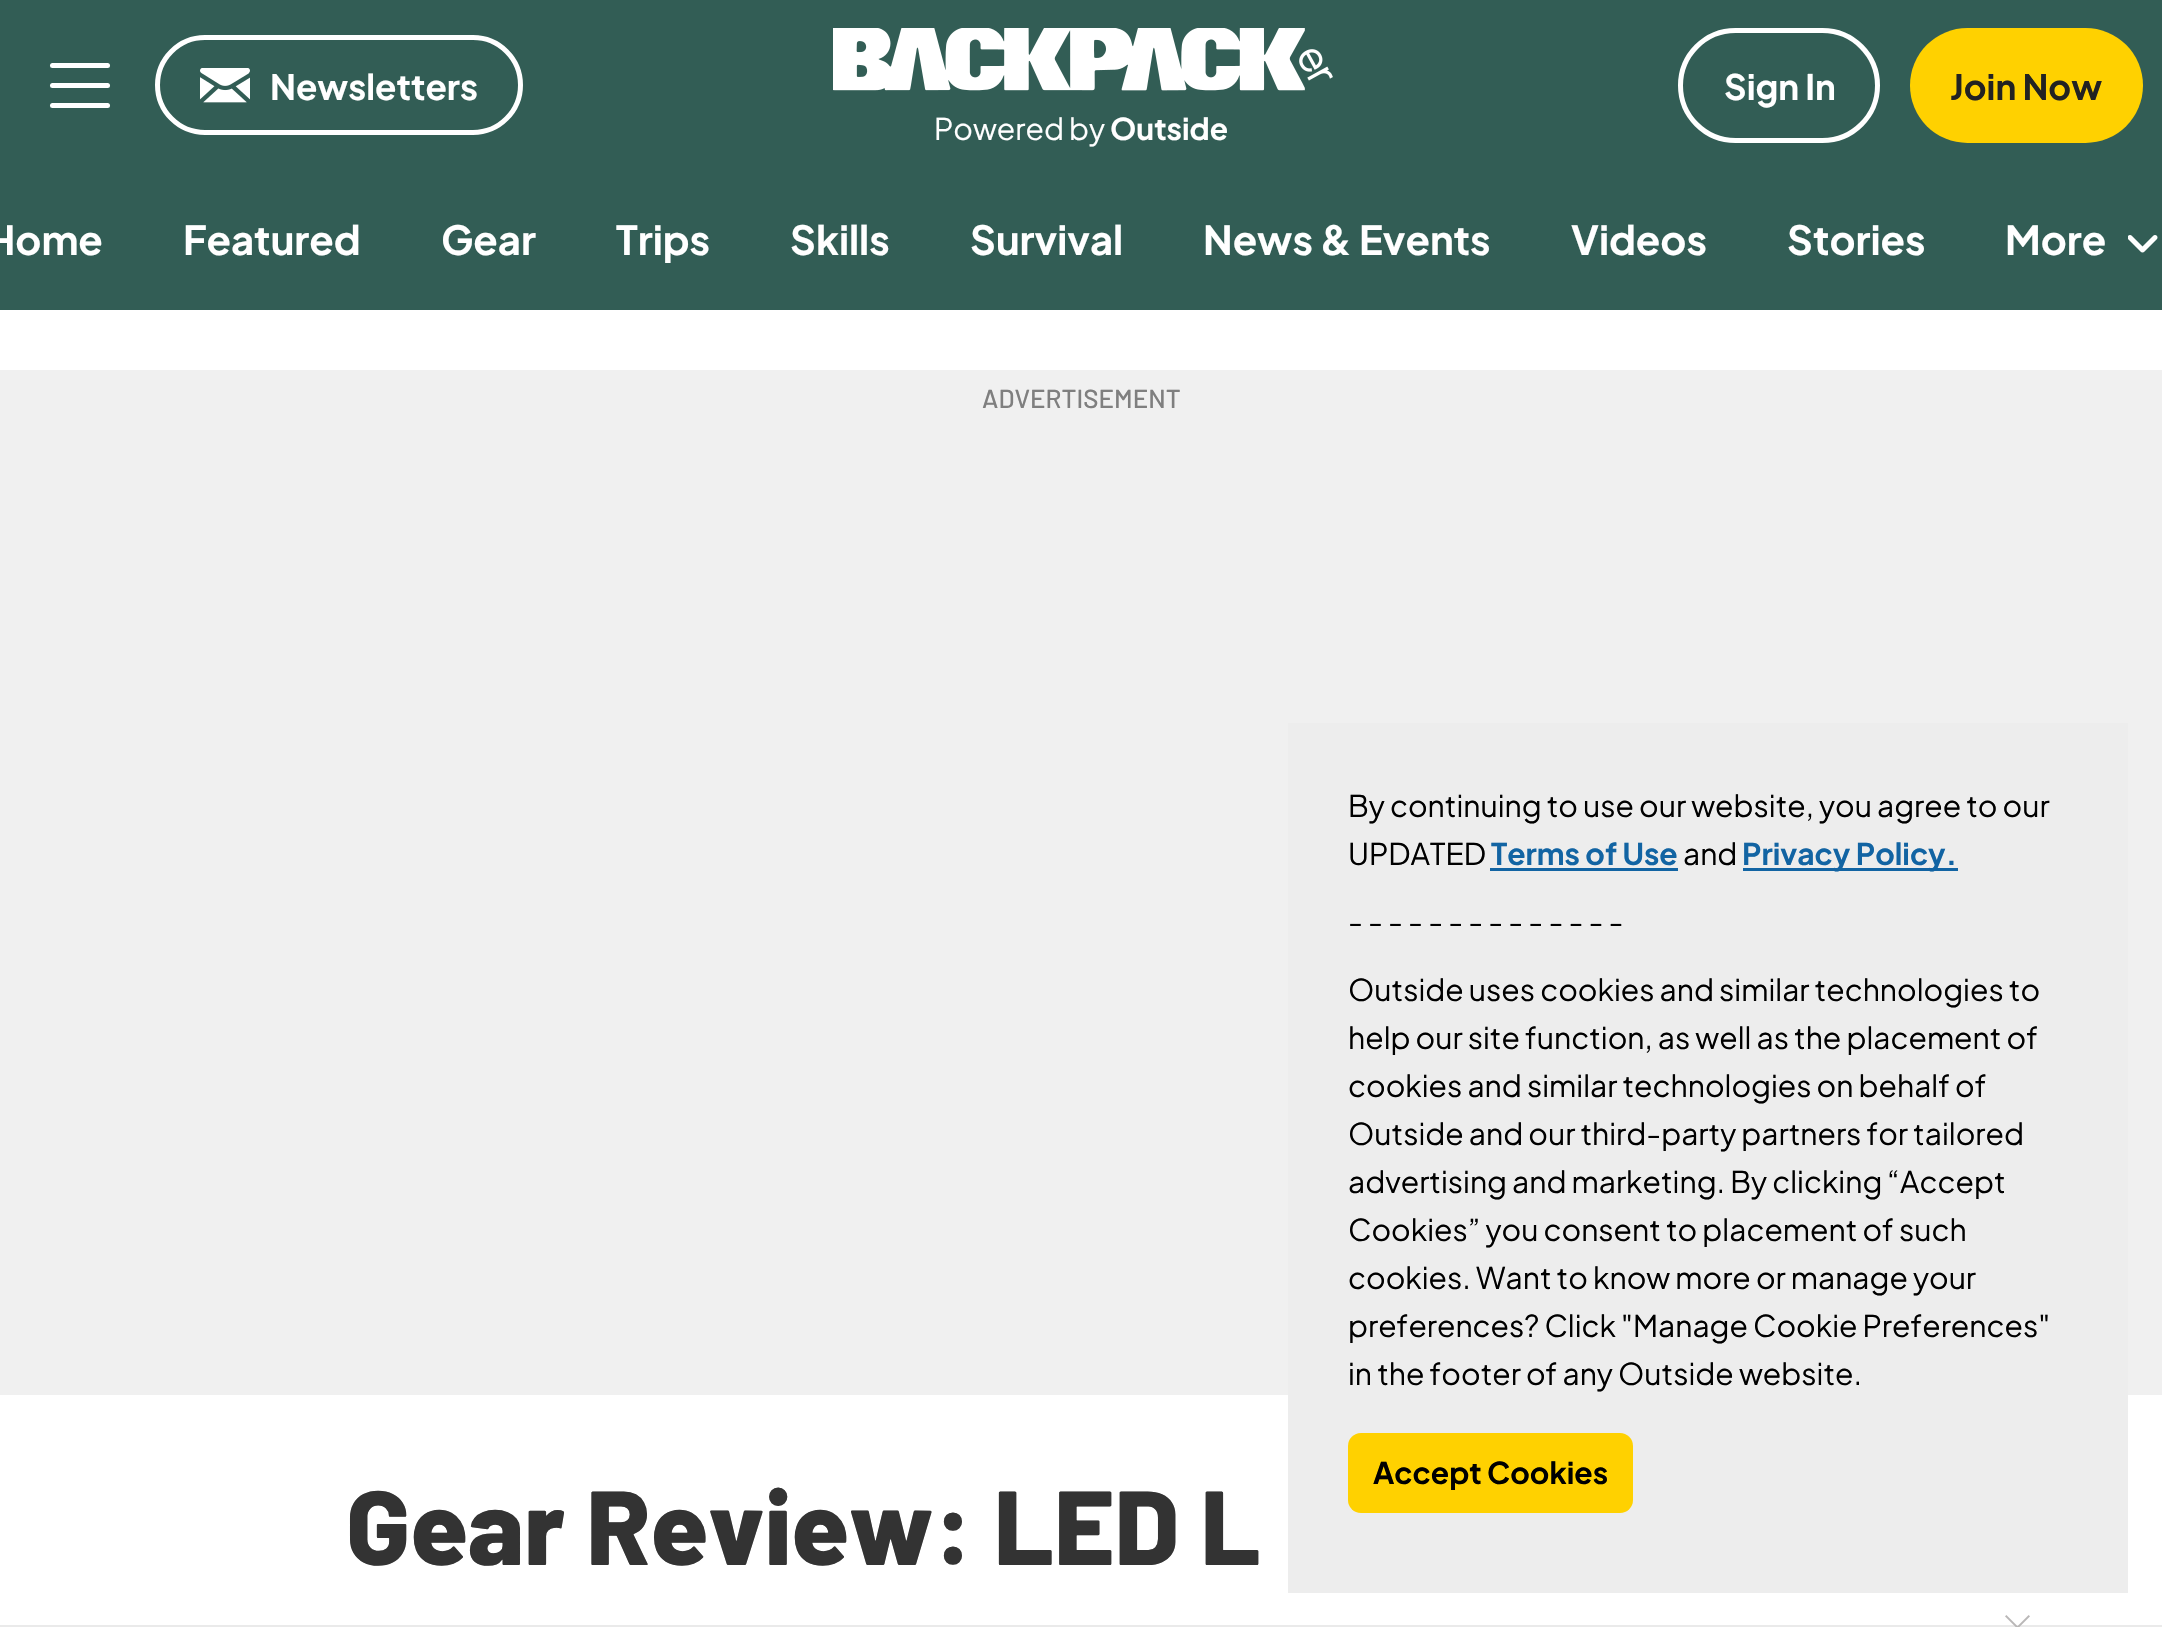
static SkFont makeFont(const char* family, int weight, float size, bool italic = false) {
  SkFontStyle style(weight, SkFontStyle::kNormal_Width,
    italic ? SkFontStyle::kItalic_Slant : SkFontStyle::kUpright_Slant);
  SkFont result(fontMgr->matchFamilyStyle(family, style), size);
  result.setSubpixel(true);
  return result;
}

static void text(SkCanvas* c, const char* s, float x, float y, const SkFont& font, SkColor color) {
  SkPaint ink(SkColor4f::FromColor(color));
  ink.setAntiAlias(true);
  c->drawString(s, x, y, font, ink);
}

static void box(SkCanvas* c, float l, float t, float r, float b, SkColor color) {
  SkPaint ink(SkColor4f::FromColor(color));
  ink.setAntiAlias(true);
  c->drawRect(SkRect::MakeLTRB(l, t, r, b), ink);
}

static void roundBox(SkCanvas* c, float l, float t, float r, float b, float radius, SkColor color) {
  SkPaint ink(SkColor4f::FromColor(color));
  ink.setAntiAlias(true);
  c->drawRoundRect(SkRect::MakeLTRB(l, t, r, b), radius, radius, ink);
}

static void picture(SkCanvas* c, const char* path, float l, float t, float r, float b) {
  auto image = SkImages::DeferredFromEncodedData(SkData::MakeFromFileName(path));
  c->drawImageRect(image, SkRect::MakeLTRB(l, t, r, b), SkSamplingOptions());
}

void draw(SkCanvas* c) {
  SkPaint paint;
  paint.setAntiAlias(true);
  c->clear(0xffffffff);
  box(c, 0, 0, 2162, 310, 0xff325d55);
  roundBox(c, 50, 63, 110, 68, 2.5f, 0xffffffff);
  roundBox(c, 50, 83, 110, 88, 2.5f, 0xffffffff);
  roundBox(c, 50, 103, 110, 108, 2.5f, 0xffffffff);
  paint.setStyle(SkPaint::kStroke_Style);
  paint.setStrokeWidth(5);
  paint.setColor(0xffffffff);
  c->drawRoundRect(SkRect::MakeLTRB(157.5f, 37.5f, 520.5f, 132.5f), 47.5f, 47.5f, paint);
  picture(c, "img_01.png", 200, 68, 250, 103);
  SkFont face1 = makeFont("Plus Jakarta Sans", 700, 35);
  text(c, "Newsletters", 270, 100, face1, 0xffffffff);
  c->drawRoundRect(SkRect::MakeLTRB(1680.5f, 30.5f, 1877.5f, 140.5f), 55, 55, paint);
  text(c, "Sign In", 1724, 100, face1, 0xffffffff);
  roundBox(c, 1910, 28, 2143, 143, 57.5f, 0xffffd100);
  text(c, "Join Now", 1950, 100, face1, 0xff222222);
  picture(c, "img_02.png", 833, 28, 1333, 91);
  SkFont face2 = makeFont("Plus Jakarta Sans", 400, 30);
  text(c, "Powered by", 934, 140, face2, 0xffffffff);
  SkFont face3 = makeFont("Plus Jakarta Sans", 700, 30);
  text(c, "Outside", 1110, 140, face3, 0xffffffff);
  SkFont face4 = makeFont("Plus Jakarta Sans", 700, 40);
  text(c, "Home", -14, 255, face4, 0xffffffff);
  text(c, "Featured", 183, 255, face4, 0xffffffff);
  text(c, "Gear", 441, 255, face4, 0xffffffff);
  text(c, "Trips", 616, 255, face4, 0xffffffff);
  text(c, "Skills", 790, 255, face4, 0xffffffff);
  text(c, "Survival", 970, 255, face4, 0xffffffff);
  text(c, "News & Events", 1203, 255, face4, 0xffffffff);
  text(c, "Videos", 1571, 255, face4, 0xffffffff);
  text(c, "Stories", 1787, 255, face4, 0xffffffff);
  text(c, "More", 2005, 255, face4, 0xffffffff);
  picture(c, "img_03.png", 2128, 235, 2158, 253);
  box(c, 0, 370, 2162, 1395, 0xfff0f0f0);
  SkFont face5 = makeFont("Barlow", 500, 26);
  text(c, "ADVERTISEMENT", 982, 408, face5, 0xff7f7f7f);
  box(c, 1288, 723, 2128, 1593, 0xffededed);
  text(c, "By continuing to use our website, you agree to our", 1348, 817, face2, 0xff000000);
  text(c, "UPDATED", 1348, 865, face2, 0xff000000);
  text(c, "Terms of Use", 1491, 865, face3, 0xff1264a3);
  box(c, 1490, 868, 1678, 871, 0xff1264a3);
  text(c, "and", 1683, 865, face2, 0xff000000);
  box(c, 1743, 868, 1958, 871, 0xff1264a3);
  text(c, "Privacy Policy.", 1742, 865, face3, 0xff1264a3);
  text(c, "- - - - - - - - - - - - - -", 1348, 933, face2, 0xff000000);
  text(c, "Outside uses cookies and similar technologies to", 1348, 1001, face2, 0xff000000);
  text(c, "help our site function, as well as the placement of", 1348, 1049, face2, 0xff000000);
  text(c, "cookies and similar technologies on behalf of", 1348, 1097, face2, 0xff000000);
  text(c, "Outside and our third-party partners for tailored", 1348, 1145, face2, 0xff000000);
  text(c, "advertising and marketing. By clicking “Accept", 1348, 1193, face2, 0xff000000);
  text(c, "Cookies” you consent to placement of such", 1348, 1241, face2, 0xff000000);
  text(c, "cookies. Want to know more or manage your", 1348, 1289, face2, 0xff000000);
  text(c, "preferences? Click \"Manage Cookie Preferences\"", 1348, 1337, face2, 0xff000000);
  text(c, "in the footer of any Outside website.", 1348, 1385, face2, 0xff000000);
  roundBox(c, 1348, 1433, 1633, 1513, 13, 0xffffd100);
  text(c, "Accept Cookies", 1373, 1484, face3, 0xff000000);
  SkFont face6 = makeFont("Barlow", 800, 105);
  text(c, "Gear Review: LED L", 346, 1565, face6, 0xff333333);
  box(c, 0, 1625, 2162, 1627, 0xffeaeaea);
  picture(c, "img_04.png", 2005, 1615, 2030, 1627);
}
